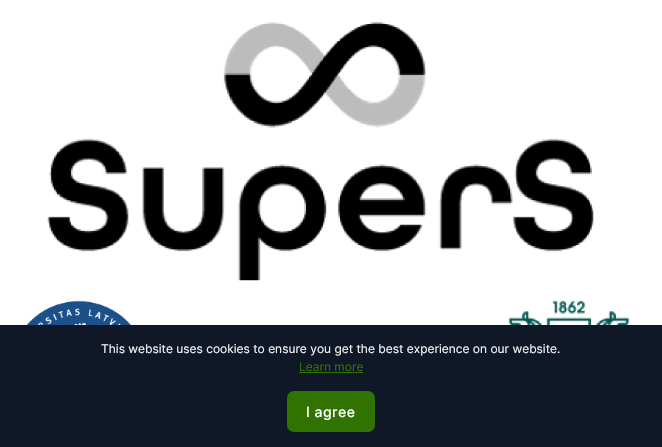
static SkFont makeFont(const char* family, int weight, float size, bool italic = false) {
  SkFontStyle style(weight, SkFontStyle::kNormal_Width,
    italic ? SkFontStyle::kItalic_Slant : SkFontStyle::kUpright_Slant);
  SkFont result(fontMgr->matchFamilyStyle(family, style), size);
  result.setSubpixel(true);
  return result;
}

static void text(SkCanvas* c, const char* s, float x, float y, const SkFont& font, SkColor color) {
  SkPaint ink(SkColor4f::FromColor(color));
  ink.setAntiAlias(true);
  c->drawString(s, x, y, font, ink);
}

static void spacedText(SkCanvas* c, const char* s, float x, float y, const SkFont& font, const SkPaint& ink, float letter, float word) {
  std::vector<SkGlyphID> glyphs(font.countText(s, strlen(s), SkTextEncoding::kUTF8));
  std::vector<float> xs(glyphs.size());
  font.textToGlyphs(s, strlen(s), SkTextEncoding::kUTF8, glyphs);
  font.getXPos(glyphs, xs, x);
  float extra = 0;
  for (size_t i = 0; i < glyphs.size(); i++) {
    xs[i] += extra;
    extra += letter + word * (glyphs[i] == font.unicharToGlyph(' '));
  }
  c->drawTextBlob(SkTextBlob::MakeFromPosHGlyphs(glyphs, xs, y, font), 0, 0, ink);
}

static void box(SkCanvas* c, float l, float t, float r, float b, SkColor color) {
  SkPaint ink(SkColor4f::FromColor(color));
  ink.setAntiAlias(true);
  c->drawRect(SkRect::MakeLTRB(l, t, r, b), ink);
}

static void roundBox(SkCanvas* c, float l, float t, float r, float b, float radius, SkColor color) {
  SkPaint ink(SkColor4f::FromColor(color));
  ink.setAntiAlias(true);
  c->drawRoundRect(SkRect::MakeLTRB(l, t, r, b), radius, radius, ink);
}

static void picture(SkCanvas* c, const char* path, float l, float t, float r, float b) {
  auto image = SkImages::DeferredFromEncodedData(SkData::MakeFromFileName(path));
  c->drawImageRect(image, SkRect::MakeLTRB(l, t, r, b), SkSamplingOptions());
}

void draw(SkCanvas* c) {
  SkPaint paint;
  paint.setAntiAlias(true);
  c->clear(0xffffffff);
  picture(c, "img_01.png", 27, 22, 630, 325);
  box(c, 0, 325, 662, 447, 0xff101828);
  SkFont face1 = makeFont("Inter", 400, 12);
  text(c, "This website uses cookies to ensure you get the best experience on our website.", 101, 353, face1, 0xfff2f4f7);
  text(c, "Learn more", 299, 371, face1, 0xff307300);
  box(c, 299, 372, 363, 373, 0xff307300);
  roundBox(c, 287, 391, 375, 432, 7, 0xff307300);
  SkFont face2 = makeFont("Inter", 500, 14);
  paint.setColor(0xffffffff);
  spacedText(c, "I agree", 306, 417, face2, paint, 0.5f, 0);
}
